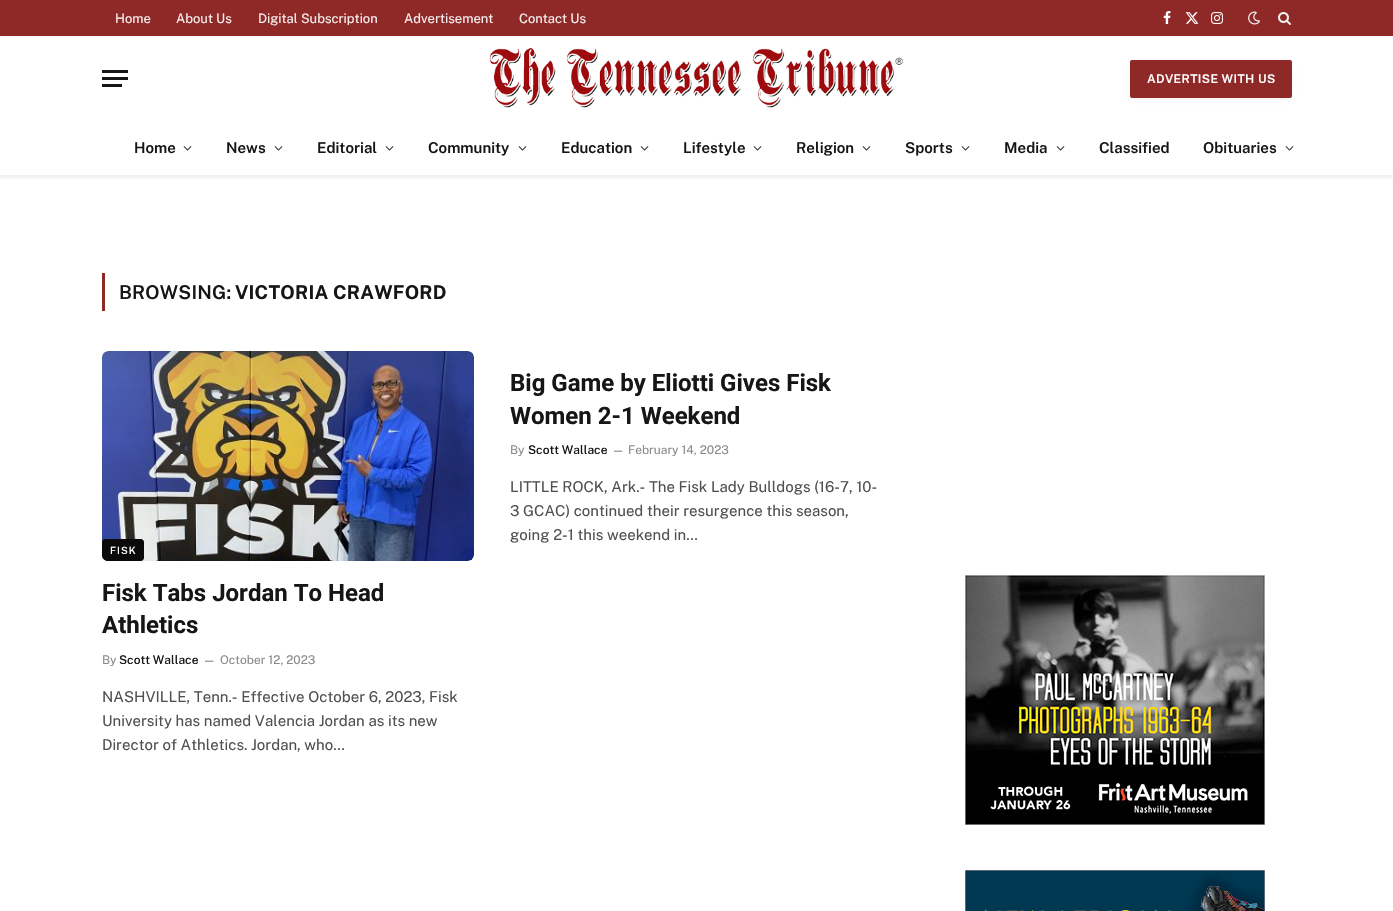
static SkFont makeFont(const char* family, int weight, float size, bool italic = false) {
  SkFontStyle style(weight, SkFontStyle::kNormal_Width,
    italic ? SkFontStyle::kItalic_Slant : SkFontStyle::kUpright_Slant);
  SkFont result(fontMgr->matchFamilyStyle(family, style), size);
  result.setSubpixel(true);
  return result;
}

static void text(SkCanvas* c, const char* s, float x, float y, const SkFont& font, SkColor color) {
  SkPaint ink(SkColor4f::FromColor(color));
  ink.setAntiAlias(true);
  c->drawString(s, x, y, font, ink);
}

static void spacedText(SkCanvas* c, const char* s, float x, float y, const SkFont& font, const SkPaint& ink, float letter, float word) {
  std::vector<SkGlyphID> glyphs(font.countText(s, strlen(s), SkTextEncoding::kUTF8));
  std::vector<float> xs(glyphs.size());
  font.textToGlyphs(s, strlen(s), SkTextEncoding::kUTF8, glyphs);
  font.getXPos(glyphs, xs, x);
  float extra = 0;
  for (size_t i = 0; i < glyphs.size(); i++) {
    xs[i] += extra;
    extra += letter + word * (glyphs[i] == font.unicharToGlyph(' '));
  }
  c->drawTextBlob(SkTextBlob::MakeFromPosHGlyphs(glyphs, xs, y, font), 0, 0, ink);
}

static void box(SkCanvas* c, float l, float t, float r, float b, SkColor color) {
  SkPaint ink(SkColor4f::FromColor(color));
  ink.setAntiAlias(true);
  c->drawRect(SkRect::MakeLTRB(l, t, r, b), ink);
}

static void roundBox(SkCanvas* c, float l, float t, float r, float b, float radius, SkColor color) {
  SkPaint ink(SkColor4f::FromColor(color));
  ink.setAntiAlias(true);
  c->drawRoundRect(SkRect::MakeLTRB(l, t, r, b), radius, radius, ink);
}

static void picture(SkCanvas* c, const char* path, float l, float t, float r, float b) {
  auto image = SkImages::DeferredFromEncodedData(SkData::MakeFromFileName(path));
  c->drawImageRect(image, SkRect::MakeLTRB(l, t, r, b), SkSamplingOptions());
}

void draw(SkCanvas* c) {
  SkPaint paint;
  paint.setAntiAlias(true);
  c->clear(0xffffffff);
  c->save();
  c->clipRect(SkRect::MakeLTRB(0, 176, 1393, 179));
  paint.setColor(0x0d000000);
  paint.setMaskFilter(SkMaskFilter::MakeBlur(kNormal_SkBlurStyle, 2));
  c->drawRect(SkRect::MakeLTRB(0, 3, 1393, 179), paint);
  paint.setMaskFilter(nullptr);
  c->restore();
  box(c, 0, 0, 1393, 36, 0xff8f2927);
  SkFont face1 = makeFont("Public Sans", 400, 13);
  text(c, "Home", 115, 23, face1, 0xfff6eeee);
  text(c, "About Us", 176, 23, face1, 0xfff6eeee);
  text(c, "Digital Subscription", 258, 23, face1, 0xfff6eeee);
  text(c, "Advertisement", 404, 23, face1, 0xfff6eeee);
  text(c, "Contact Us", 519, 23, face1, 0xfff6eeee);
  picture(c, "img_01.png", 1163, 11, 1171, 24);
  picture(c, "img_02.png", 1185, 12, 1199, 24);
  picture(c, "img_03.png", 1211, 12, 1223, 24);
  picture(c, "img_04.png", 1248, 11, 1260, 25);
  picture(c, "img_05.png", 1278, 12, 1291, 25);
  box(c, 102, 84, 122, 87, 0xff161616);
  box(c, 102, 70, 128, 73, 0xff161616);
  box(c, 102, 77, 128, 80, 0xff161616);
  picture(c, "img_06.png", 489, 48, 903, 108);
  paint.setColor(0x29000000);
  paint.setMaskFilter(SkMaskFilter::MakeBlur(kNormal_SkBlurStyle, 3.5f));
  c->drawRect(SkRect::MakeLTRB(1134, 66, 1288, 96), paint);
  paint.setMaskFilter(nullptr);
  roundBox(c, 1130, 60, 1292, 98, 2, 0xff8f2927);
  SkFont face2 = makeFont("Public Sans", 600, 12);
  paint.setColor(0xffffffff);
  spacedText(c, "ADVERTISE WITH US", 1147, 83, face2, paint, 0.4f, 0);
  box(c, 0, 175, 1393, 176, 0xffefefef);
  SkFont face3 = makeFont("Public Sans", 600, 15);
  text(c, "Home", 134, 153, face3, 0xff161616);
  picture(c, "img_07.png", 183, 146, 192, 151);
  text(c, "News", 226, 153, face3, 0xff161616);
  picture(c, "img_07.png", 274, 146, 283, 151);
  text(c, "Editorial", 317, 153, face3, 0xff161616);
  picture(c, "img_07.png", 385, 146, 394, 151);
  text(c, "Community", 428, 153, face3, 0xff161616);
  picture(c, "img_07.png", 518, 146, 527, 151);
  text(c, "Education", 561, 153, face3, 0xff161616);
  picture(c, "img_07.png", 640, 146, 649, 151);
  text(c, "Lifestyle", 683, 153, face3, 0xff161616);
  picture(c, "img_07.png", 753, 146, 762, 151);
  text(c, "Religion", 796, 153, face3, 0xff161616);
  picture(c, "img_07.png", 862, 146, 871, 151);
  text(c, "Sports", 905, 153, face3, 0xff161616);
  picture(c, "img_07.png", 961, 146, 970, 151);
  text(c, "Media", 1004, 153, face3, 0xff161616);
  picture(c, "img_07.png", 1056, 146, 1065, 151);
  text(c, "Classified", 1099, 153, face3, 0xff161616);
  text(c, "Obituaries", 1203, 153, face3, 0xff161616);
  picture(c, "img_07.png", 1285, 146, 1294, 151);
  box(c, 102, 273, 105, 311, 0xff8f2927);
  SkFont face4 = makeFont("Public Sans", 600, 19);
  paint.setColor(0xff161616);
  spacedText(c, "BROWSING:", 119, 299, face4, paint, 0.2f, 0);
  SkFont face5 = makeFont("Public Sans", 700, 19);
  spacedText(c, "VICTORIA CRAWFORD", 235, 299, face5, paint, 0.2f, 0);
  SkFont face6 = makeFont("Roboto", 700, 24);
  text(c, "Big Game by Eliotti Gives Fisk", 510, 391, face6, 0xff161616);
  text(c, "Women 2-1 Weekend", 510, 424, face6, 0xff161616);
  SkFont face7 = makeFont("Public Sans", 400, 12);
  text(c, "By", 510, 454, face7, 0xff8a8a8a);
  SkFont face8 = makeFont("Public Sans", 500, 12);
  text(c, "Scott Wallace", 528, 454, face8, 0xff161616);
  SkFont face9 = makeFont("Public Sans", 400, 11);
  text(c, "—", 612, 454, face9, 0xff8a8a8a);
  text(c, "February 14, 2023", 628, 454, face7, 0xff8a8a8a);
  SkFont face10 = makeFont("Public Sans", 400, 15);
  text(c, "LITTLE ROCK, Ark.- The Fisk Lady Bulldogs (16-7, 10-", 510, 492, face10, 0xff505050);
  text(c, "3 GCAC) continued their resurgence this season,", 510, 516, face10, 0xff505050);
  text(c, "going 2-1 this weekend in…", 510, 540, face10, 0xff505050);
  picture(c, "img_08.png", 102, 351, 474, 561);
  paint.setColor(0xff0a0a0a);
  c->drawPath(SkPathBuilder().moveTo(105, 539).lineTo(141, 539).cubicTo(142.5f, 539, 144, 540.5f, 144, 542).lineTo(144, 558).cubicTo(144, 559.5f, 142.5f, 561, 141, 561).lineTo(108, 561).cubicTo(104.5f, 561, 102, 558.5f, 102, 555).lineTo(102, 542).cubicTo(102, 540.5f, 103.5f, 539, 105, 539).close().detach(), paint);
  SkFont face11 = makeFont("Public Sans", 500, 10);
  paint.setColor(0xffffffff);
  spacedText(c, "FISK", 110, 554, face11, paint, 1, 0);
  text(c, "Fisk Tabs Jordan To Head", 102, 601, face6, 0xff161616);
  text(c, "Athletics", 102, 633, face6, 0xff161616);
  text(c, "By", 102, 664, face7, 0xff8a8a8a);
  text(c, "Scott Wallace", 119, 664, face8, 0xff161616);
  text(c, "—", 203, 664, face9, 0xff8a8a8a);
  text(c, "October 12, 2023", 220, 664, face7, 0xff8a8a8a);
  text(c, "NASHVILLE, Tenn.- Effective October 6, 2023, Fisk", 102, 702, face10, 0xff505050);
  text(c, "University has named Valencia Jordan as its new", 102, 726, face10, 0xff505050);
  text(c, "Director of Athletics. Jordan, who…", 102, 750, face10, 0xff505050);
  picture(c, "img_09.png", 965, 575, 1265, 825);
  picture(c, "img_10.png", 965, 870, 1265, 911);
}
